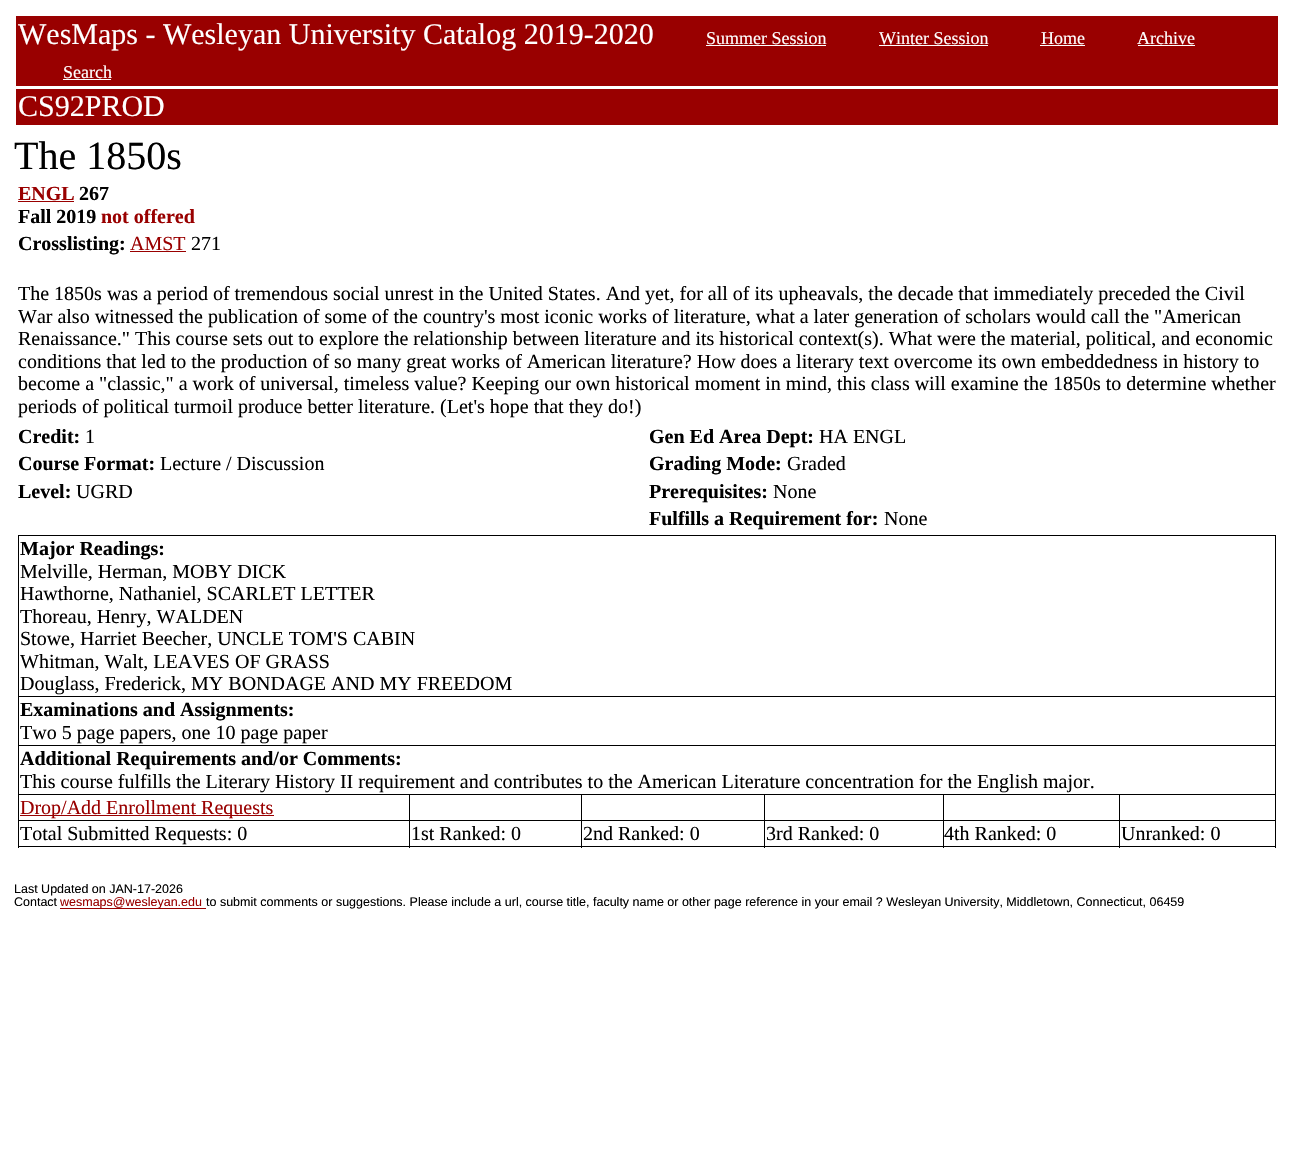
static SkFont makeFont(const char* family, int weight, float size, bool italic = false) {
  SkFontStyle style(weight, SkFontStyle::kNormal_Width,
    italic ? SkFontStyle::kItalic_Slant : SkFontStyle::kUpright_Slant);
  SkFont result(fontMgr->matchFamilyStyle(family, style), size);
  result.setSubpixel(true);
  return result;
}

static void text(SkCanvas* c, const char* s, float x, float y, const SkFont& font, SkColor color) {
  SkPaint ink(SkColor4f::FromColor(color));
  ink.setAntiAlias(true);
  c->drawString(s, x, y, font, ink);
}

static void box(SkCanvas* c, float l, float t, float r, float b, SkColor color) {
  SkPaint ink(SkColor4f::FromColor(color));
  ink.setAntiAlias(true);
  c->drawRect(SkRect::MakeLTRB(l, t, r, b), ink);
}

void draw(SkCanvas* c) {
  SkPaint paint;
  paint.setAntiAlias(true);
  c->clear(0xffffffff);
  box(c, 16, 16, 1278, 86, 0xff990000);
  SkFont face1 = makeFont("Liberation Serif", 400, 30);
  text(c, "WesMaps - Wesleyan University Catalog 2019-2020", 18, 44, face1, 0xffffffff);
  SkFont face2 = makeFont("Liberation Serif", 400, 18);
  text(c, "Summer Session", 706, 44, face2, 0xffffffff);
  box(c, 706, 45, 826, 46, 0xffffffff);
  text(c, "Winter Session", 879, 44, face2, 0xffffffff);
  box(c, 879, 45, 988, 46, 0xffffffff);
  text(c, "Home", 1041, 44, face2, 0xffffffff);
  box(c, 1040, 45, 1085, 46, 0xffffffff);
  text(c, "Archive", 1137, 44, face2, 0xffffffff);
  box(c, 1138, 45, 1195, 46, 0xffffffff);
  text(c, "Search", 63, 78, face2, 0xffffffff);
  box(c, 63, 79, 111, 80, 0xffffffff);
  box(c, 16, 89, 1278, 125, 0xff990000);
  text(c, "CS92PROD", 18, 116, face1, 0xffffffff);
  SkFont face3 = makeFont("Liberation Serif", 400, 40);
  text(c, "The 1850s", 14, 169, face3, 0xff000000);
  SkFont face4 = makeFont("Liberation Serif", 700, 20);
  text(c, "ENGL", 18, 200, face4, 0xff990000);
  box(c, 18, 201, 74, 202, 0xff990000);
  text(c, "267", 79, 200, face4, 0xff000000);
  text(c, "Fall 2019", 18, 223, face4, 0xff000000);
  text(c, "not offered", 101, 223, face4, 0xff990000);
  text(c, "Crosslisting:", 18, 250, face4, 0xff000000);
  SkFont face5 = makeFont("Liberation Serif", 400, 20);
  text(c, "AMST", 130, 250, face5, 0xff990000);
  box(c, 130, 251, 186, 252, 0xff990000);
  text(c, "271", 191, 250, face5, 0xff000000);
  text(c, "The 1850s was a period of tremendous social unrest in the United States. And yet, for all of its upheavals, the decade that immediately preceded the Civil", 18, 300, face5, 0xff000000);
  text(c, "War also witnessed the publication of some of the country's most iconic works of literature, what a later generation of scholars would call the \"American", 18, 323, face5, 0xff000000);
  text(c, "Renaissance.\" This course sets out to explore the relationship between literature and its historical context(s). What were the material, political, and economic", 18, 345, face5, 0xff000000);
  text(c, "conditions that led to the production of so many great works of American literature? How does a literary text overcome its own embeddedness in history to", 18, 368, face5, 0xff000000);
  text(c, "become a \"classic,\" a work of universal, timeless value? Keeping our own historical moment in mind, this class will examine the 1850s to determine whether", 18, 390, face5, 0xff000000);
  text(c, "periods of political turmoil produce better literature. (Let's hope that they do!)", 18, 413, face5, 0xff000000);
  text(c, "Credit:", 18, 443, face4, 0xff000000);
  text(c, "1", 85, 443, face5, 0xff000000);
  text(c, "Gen Ed Area Dept:", 649, 443, face4, 0xff000000);
  text(c, "HA ENGL", 819, 443, face5, 0xff000000);
  text(c, "Course Format:", 18, 470, face4, 0xff000000);
  text(c, "Lecture / Discussion", 160, 470, face5, 0xff000000);
  text(c, "Grading Mode:", 649, 470, face4, 0xff000000);
  text(c, "Graded", 787, 470, face5, 0xff000000);
  text(c, "Level:", 18, 498, face4, 0xff000000);
  text(c, "UGRD", 76, 498, face5, 0xff000000);
  text(c, "Prerequisites:", 649, 498, face4, 0xff000000);
  text(c, "None", 773, 498, face5, 0xff000000);
  text(c, "Fulfills a Requirement for:", 649, 525, face4, 0xff000000);
  text(c, "None", 884, 525, face5, 0xff000000);
  box(c, 18, 535, 1276, 536, 0xff000000);
  box(c, 1275, 535, 1276, 848, 0xff000000);
  box(c, 18, 846, 1276, 847, 0xff000000);
  box(c, 18, 535, 19, 848, 0xff000000);
  text(c, "Major Readings:", 20, 555, face4, 0xff000000);
  text(c, "Melville, Herman, MOBY DICK", 20, 578, face5, 0xff000000);
  text(c, "Hawthorne, Nathaniel, SCARLET LETTER", 20, 600, face5, 0xff000000);
  text(c, "Thoreau, Henry, WALDEN", 20, 623, face5, 0xff000000);
  text(c, "Stowe, Harriet Beecher, UNCLE TOM'S CABIN", 20, 645, face5, 0xff000000);
  text(c, "Whitman, Walt, LEAVES OF GRASS", 20, 668, face5, 0xff000000);
  text(c, "Douglass, Frederick, MY BONDAGE AND MY FREEDOM", 20, 690, face5, 0xff000000);
  box(c, 18, 696, 1276, 697, 0xff000000);
  text(c, "Examinations and Assignments:", 20, 716, face4, 0xff000000);
  text(c, "Two 5 page papers, one 10 page paper", 20, 739, face5, 0xff000000);
  box(c, 18, 745, 1276, 746, 0xff000000);
  text(c, "Additional Requirements and/or Comments:", 20, 765, face4, 0xff000000);
  text(c, "This course fulfills the Literary History II requirement and contributes to the American Literature concentration for the English major.", 20, 788, face5, 0xff000000);
  box(c, 1119, 794, 1276, 795, 0xff000000);
  box(c, 1119, 820, 1276, 821, 0xff000000);
  box(c, 1119, 820, 1120, 848, 0xff000000);
  box(c, 943, 820, 1120, 821, 0xff000000);
  box(c, 1119, 794, 1120, 821, 0xff000000);
  box(c, 943, 794, 1120, 795, 0xff000000);
  box(c, 943, 820, 944, 848, 0xff000000);
  box(c, 764, 820, 944, 821, 0xff000000);
  box(c, 943, 794, 944, 821, 0xff000000);
  box(c, 764, 794, 944, 795, 0xff000000);
  box(c, 764, 820, 765, 848, 0xff000000);
  box(c, 581, 820, 765, 821, 0xff000000);
  box(c, 764, 794, 765, 821, 0xff000000);
  box(c, 581, 794, 765, 795, 0xff000000);
  box(c, 581, 820, 582, 848, 0xff000000);
  box(c, 409, 820, 583, 821, 0xff000000);
  box(c, 581, 794, 582, 821, 0xff000000);
  box(c, 409, 794, 583, 795, 0xff000000);
  box(c, 409, 820, 410, 848, 0xff000000);
  box(c, 18, 820, 410, 821, 0xff000000);
  box(c, 409, 794, 410, 821, 0xff000000);
  box(c, 18, 794, 410, 795, 0xff000000);
  box(c, 20, 815, 274, 816, 0xff990000);
  text(c, "Drop/Add Enrollment Requests", 20, 814, face5, 0xff990000);
  text(c, "Total Submitted Requests: 0", 20, 840, face5, 0xff000000);
  text(c, "1st Ranked: 0", 411, 840, face5, 0xff000000);
  text(c, "2nd Ranked: 0", 583, 840, face5, 0xff000000);
  text(c, "3rd Ranked: 0", 766, 840, face5, 0xff000000);
  text(c, "4th Ranked: 0", 944, 840, face5, 0xff000000);
  text(c, "Unranked: 0", 1121, 840, face5, 0xff000000);
  SkFont face6 = makeFont("Liberation Sans", 400, 12.5f);
  text(c, "Last Updated on JAN-17-2026", 14, 893, face6, 0xff000000);
  text(c, "Contact", 14, 906, face6, 0xff000000);
  box(c, 60, 908, 206, 909, 0xff990000);
  text(c, "wesmaps@wesleyan.edu", 60, 906, face6, 0xff990000);
  text(c, "to submit comments or suggestions. Please include a url, course title, faculty name or other page reference in your email ? Wesleyan University, Middletown, Connecticut, 06459", 206, 906, face6, 0xff000000);
}
